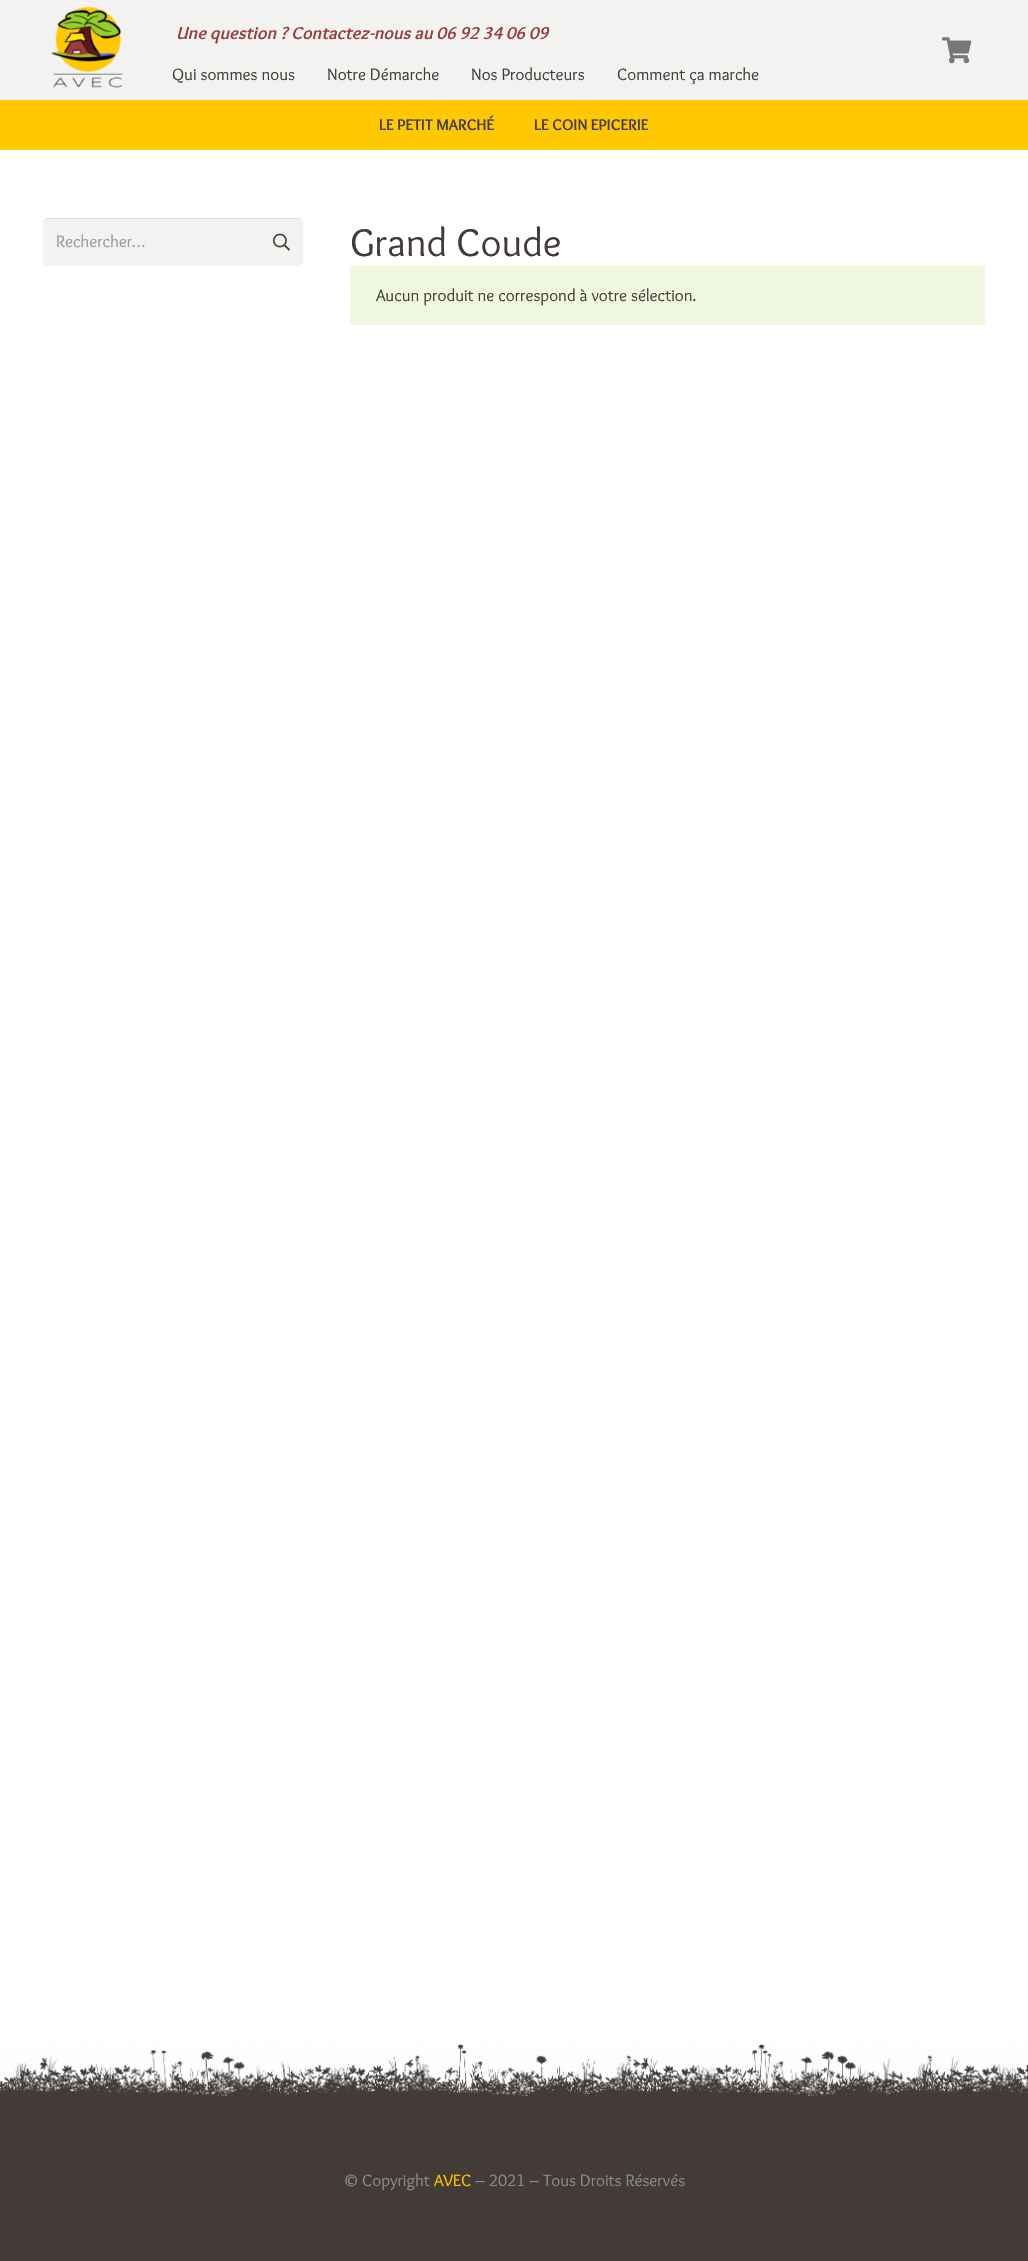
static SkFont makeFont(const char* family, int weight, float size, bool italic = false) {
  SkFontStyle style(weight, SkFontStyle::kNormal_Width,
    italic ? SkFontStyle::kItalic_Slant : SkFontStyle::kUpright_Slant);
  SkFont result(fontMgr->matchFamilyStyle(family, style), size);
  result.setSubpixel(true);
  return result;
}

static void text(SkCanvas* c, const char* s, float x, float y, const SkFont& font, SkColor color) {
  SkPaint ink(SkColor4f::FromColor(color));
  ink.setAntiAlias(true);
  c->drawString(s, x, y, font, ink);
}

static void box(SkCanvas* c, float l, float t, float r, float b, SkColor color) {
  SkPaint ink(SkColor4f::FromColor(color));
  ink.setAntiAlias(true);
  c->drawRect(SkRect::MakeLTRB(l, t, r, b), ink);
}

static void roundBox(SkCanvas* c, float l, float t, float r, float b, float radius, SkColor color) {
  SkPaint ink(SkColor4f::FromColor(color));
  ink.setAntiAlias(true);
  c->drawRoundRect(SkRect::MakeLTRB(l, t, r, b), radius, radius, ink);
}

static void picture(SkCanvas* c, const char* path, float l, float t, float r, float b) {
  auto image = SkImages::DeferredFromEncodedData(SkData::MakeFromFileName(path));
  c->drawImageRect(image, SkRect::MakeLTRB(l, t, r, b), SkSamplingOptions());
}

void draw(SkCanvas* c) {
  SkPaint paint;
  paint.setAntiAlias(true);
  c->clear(0xffffffff);
  box(c, 0, 0, 1028, 100, 0xfff2f2f0);
  picture(c, "img_01.png", 51, 7, 123, 88);
  SkFont face1 = makeFont("Overlock", 700, 18, true);
  text(c, "Une question ? Contactez-nous au 06 92 34 06 09", 176, 39, face1, 0xff9a3d3d);
  SkFont face2 = makeFont("Overlock", 400, 17);
  text(c, "Qui sommes nous", 172, 80, face2, 0xff423b38);
  text(c, "Notre Démarche", 327, 80, face2, 0xff423b38);
  text(c, "Nos Producteurs", 471, 80, face2, 0xff423b38);
  text(c, "Comment ça marche", 617, 80, face2, 0xff423b38);
  picture(c, "img_02.png", 942, 37, 972, 64);
  box(c, 0, 100, 1028, 150, 0xffffc800);
  SkFont face3 = makeFont("Overlock", 700, 16);
  text(c, "LE PETIT MARCHÉ", 379, 130, face3, 0xff423b38);
  text(c, "LE COIN EPICERIE", 534, 130, face3, 0xff423b38);
  roundBox(c, 43, 218, 303, 266, 5, 0xfff2f2f0);
  paint.setColor(0x14000000);
  c->drawPath(SkPathBuilder().moveTo(48, 219).lineTo(298, 219).cubicTo(301, 219, 303, 221, 303, 224).cubicTo(303, 221, 301, 218, 298, 218).lineTo(48, 218).cubicTo(45, 218, 43, 221, 43, 224).cubicTo(43, 221, 45, 219, 48, 219).close().detach(), paint);
  text(c, "Rechercher…", 56, 247, face2, 0xff9a9794);
  picture(c, "img_03.png", 273, 233, 290, 251);
  SkFont face4 = makeFont("Overlock", 400, 40);
  text(c, "Grand Coude", 350, 256, face4, 0xff423b38);
  box(c, 350, 266, 985, 325, 0xffeff8df);
  text(c, "Aucun produit ne correspond à votre sélection.", 376, 301, face2, 0xff423b38);
  picture(c, "img_04.png", 0, 2044, 1028, 2100);
  box(c, 0, 2100, 1028, 2261, 0xff423b38);
  text(c, "© Copyright", 343, 2186, face2, 0xff8f8b88);
  text(c, "AVEC", 434, 2186, face2, 0xffffc800);
  text(c, "– 2021 – Tous Droits Réservés", 475, 2186, face2, 0xff8f8b88);
}
